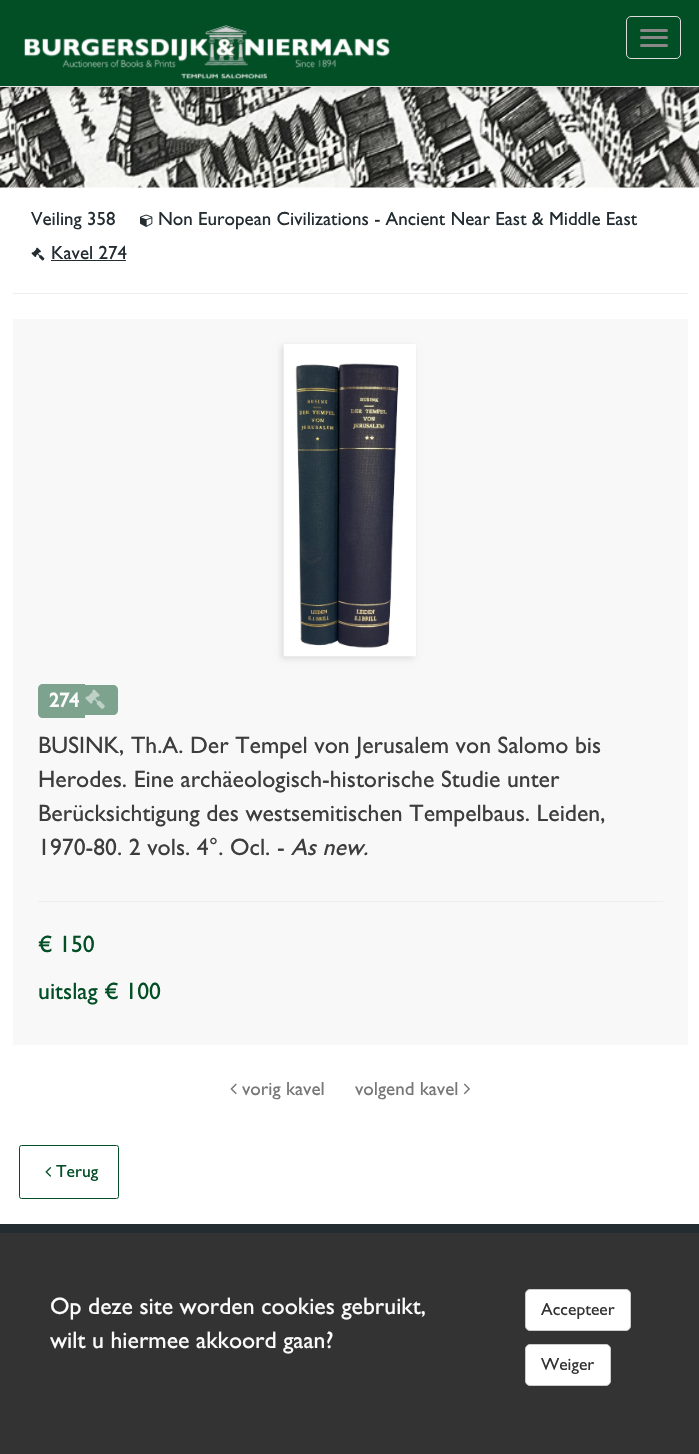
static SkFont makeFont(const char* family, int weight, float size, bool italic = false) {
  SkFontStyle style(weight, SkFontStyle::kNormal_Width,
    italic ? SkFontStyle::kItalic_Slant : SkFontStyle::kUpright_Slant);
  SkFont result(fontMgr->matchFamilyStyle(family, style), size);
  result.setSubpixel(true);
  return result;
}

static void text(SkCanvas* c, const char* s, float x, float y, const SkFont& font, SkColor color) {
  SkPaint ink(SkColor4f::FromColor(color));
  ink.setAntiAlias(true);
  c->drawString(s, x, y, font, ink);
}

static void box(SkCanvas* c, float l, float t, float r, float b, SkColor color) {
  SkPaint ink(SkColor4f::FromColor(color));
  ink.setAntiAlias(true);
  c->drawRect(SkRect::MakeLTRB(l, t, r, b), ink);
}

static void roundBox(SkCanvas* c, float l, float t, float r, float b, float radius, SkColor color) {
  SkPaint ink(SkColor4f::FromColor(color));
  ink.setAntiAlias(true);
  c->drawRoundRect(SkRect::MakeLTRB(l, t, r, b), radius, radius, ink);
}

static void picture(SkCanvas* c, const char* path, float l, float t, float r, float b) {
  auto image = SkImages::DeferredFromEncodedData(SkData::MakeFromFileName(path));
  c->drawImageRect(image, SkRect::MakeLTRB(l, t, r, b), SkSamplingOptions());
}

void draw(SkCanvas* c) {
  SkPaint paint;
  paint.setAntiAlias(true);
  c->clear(0xffffffff);
  picture(c, "img_02.png", 0, 87, 699, 188);
  paint.setColor(0x1a000000);
  paint.setMaskFilter(SkMaskFilter::MakeBlur(kNormal_SkBlurStyle, 3));
  c->drawRect(SkRect::MakeLTRB(-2, 3, 698, 90), paint);
  paint.setMaskFilter(nullptr);
  box(c, 0, 0, 699, 86, 0xff024e25);
  box(c, 0, 86, 699, 87, 0xffe7e7e7);
  picture(c, "img_01.png", 24, 25, 390, 79);
  paint.setStyle(SkPaint::kStroke_Style);
  paint.setStrokeWidth(1);
  paint.setColor(0xffdddddd);
  c->drawRoundRect(SkRect::MakeLTRB(626.5f, 16.5f, 680.5f, 58.5f), 4.5f, 4.5f, paint);
  roundBox(c, 640, 29, 668, 32, 1.5f, 0xff888888);
  roundBox(c, 640, 36, 668, 39, 1.5f, 0xff888888);
  roundBox(c, 640, 44, 668, 47, 1.5f, 0xff888888);
  SkFont face1 = makeFont("Gill Sans", 400, 19);
  text(c, "Veiling 358", 31, 225, face1, 0xff222c31);
  picture(c, "img_03.png", 140, 214, 153, 227);
  text(c, "Non European Civilizations - Ancient Near East & Middle East", 158, 225, face1, 0xff222c31);
  picture(c, "img_04.png", 31, 247, 45, 261);
  text(c, "Kavel 274", 51, 259, face1, 0xff222c31);
  box(c, 51, 260, 126, 261, 0xff222c31);
  box(c, 13, 293, 688, 294, 0xffeeeeee);
  box(c, 13, 319, 688, 1045, 0xfff8f8f8);
  paint.setStyle(SkPaint::kFill_Style);
  paint.setColor(0x1a000000);
  paint.setMaskFilter(SkMaskFilter::MakeBlur(kNormal_SkBlurStyle, 3));
  c->drawRect(SkRect::MakeLTRB(281, 346, 414, 659), paint);
  paint.setMaskFilter(nullptr);
  picture(c, "img_05.png", 283, 344, 416, 657);
  paint.setColor(0xff7da38f);
  c->drawPath(SkPathBuilder().moveTo(43, 684).lineTo(85, 684).lineTo(85, 718).lineTo(43, 718).cubicTo(40, 718, 38, 716, 38, 713).lineTo(38, 689).cubicTo(38, 686, 40, 684, 43, 684).close().detach(), paint);
  c->drawPath(SkPathBuilder().moveTo(85, 685).lineTo(113, 685).cubicTo(116, 685, 118, 687, 118, 690).lineTo(118, 710).cubicTo(118, 713, 116, 715, 113, 715).lineTo(85, 715).close().detach(), paint);
  SkFont face2 = makeFont("Gill Sans", 700, 20);
  text(c, "274", 49, 707, face2, 0xfffcfcfc);
  picture(c, "img_06.png", 85, 689, 105, 709);
  SkFont face3 = makeFont("Gill Sans", 400, 23.75f);
  text(c, "BUSINK, Th.A. Der Tempel von Jerusalem von Salomo bis", 38, 753, face3, 0xff3d3d3d);
  text(c, "Herodes. Eine archäeologisch-historische Studie unter", 38, 787, face3, 0xff3d3d3d);
  text(c, "Berücksichtigung des westsemitischen Tempelbaus. Leiden,", 38, 821, face3, 0xff3d3d3d);
  text(c, "1970-80. 2 vols. 4°. Ocl. -", 38, 855, face3, 0xff3d3d3d);
  SkFont face4 = makeFont("Gill Sans", 400, 23.75f, true);
  text(c, "As new.", 291, 855, face4, 0xff3d3d3d);
  box(c, 38, 901, 663, 902, 0xffeeeeee);
  text(c, "€ 150", 38, 952, face3, 0xff024e25);
  text(c, "uitslag € 100", 38, 999, face3, 0xff024e25);
  picture(c, "img_07.png", 230, 1083, 237, 1095);
  text(c, "vorig kavel", 242, 1095, face1, 0xff777777);
  text(c, "volgend kavel", 355, 1095, face1, 0xff777777);
  picture(c, "img_08.png", 463, 1083, 470, 1095);
  paint.setStyle(SkPaint::kStroke_Style);
  paint.setColor(0xff024e25);
  c->drawRoundRect(SkRect::MakeLTRB(19.5f, 1145.5f, 118.5f, 1198.5f), 2, 2, paint);
  picture(c, "img_09.png", 45, 1167, 52, 1177);
  SkFont face5 = makeFont("Gill Sans", 400, 17.5f);
  text(c, "Terug", 56, 1177, face5, 0xff024e25);
  box(c, 0, 1224, 699, 1233, 0xff222c31);
  box(c, 0, 1233, 699, 1454, 0xff333333);
  text(c, "Op deze site worden cookies gebruikt,", 50, 1314, face3, 0xfffcfcfc);
  text(c, "wilt u hiermee akkoord gaan?", 50, 1348, face3, 0xfffcfcfc);
  paint.setStyle(SkPaint::kFill_Style);
  paint.setColor(0xffffffff);
  c->drawRoundRect(SkRect::MakeLTRB(525.5f, 1289.5f, 630.5f, 1330.5f), 4.5f, 4.5f, paint);
  paint.setStyle(SkPaint::kStroke_Style);
  paint.setColor(0xffcccccc);
  c->drawRoundRect(SkRect::MakeLTRB(525.5f, 1289.5f, 630.5f, 1330.5f), 4.5f, 4.5f, paint);
  text(c, "Accepteer", 541, 1315, face5, 0xff333333);
  paint.setStyle(SkPaint::kFill_Style);
  paint.setColor(0xffffffff);
  c->drawRoundRect(SkRect::MakeLTRB(525.5f, 1344.5f, 610.5f, 1385.5f), 4.5f, 4.5f, paint);
  paint.setStyle(SkPaint::kStroke_Style);
  paint.setColor(0xffcccccc);
  c->drawRoundRect(SkRect::MakeLTRB(525.5f, 1344.5f, 610.5f, 1385.5f), 4.5f, 4.5f, paint);
  text(c, "Weiger", 541, 1370, face5, 0xff333333);
}
